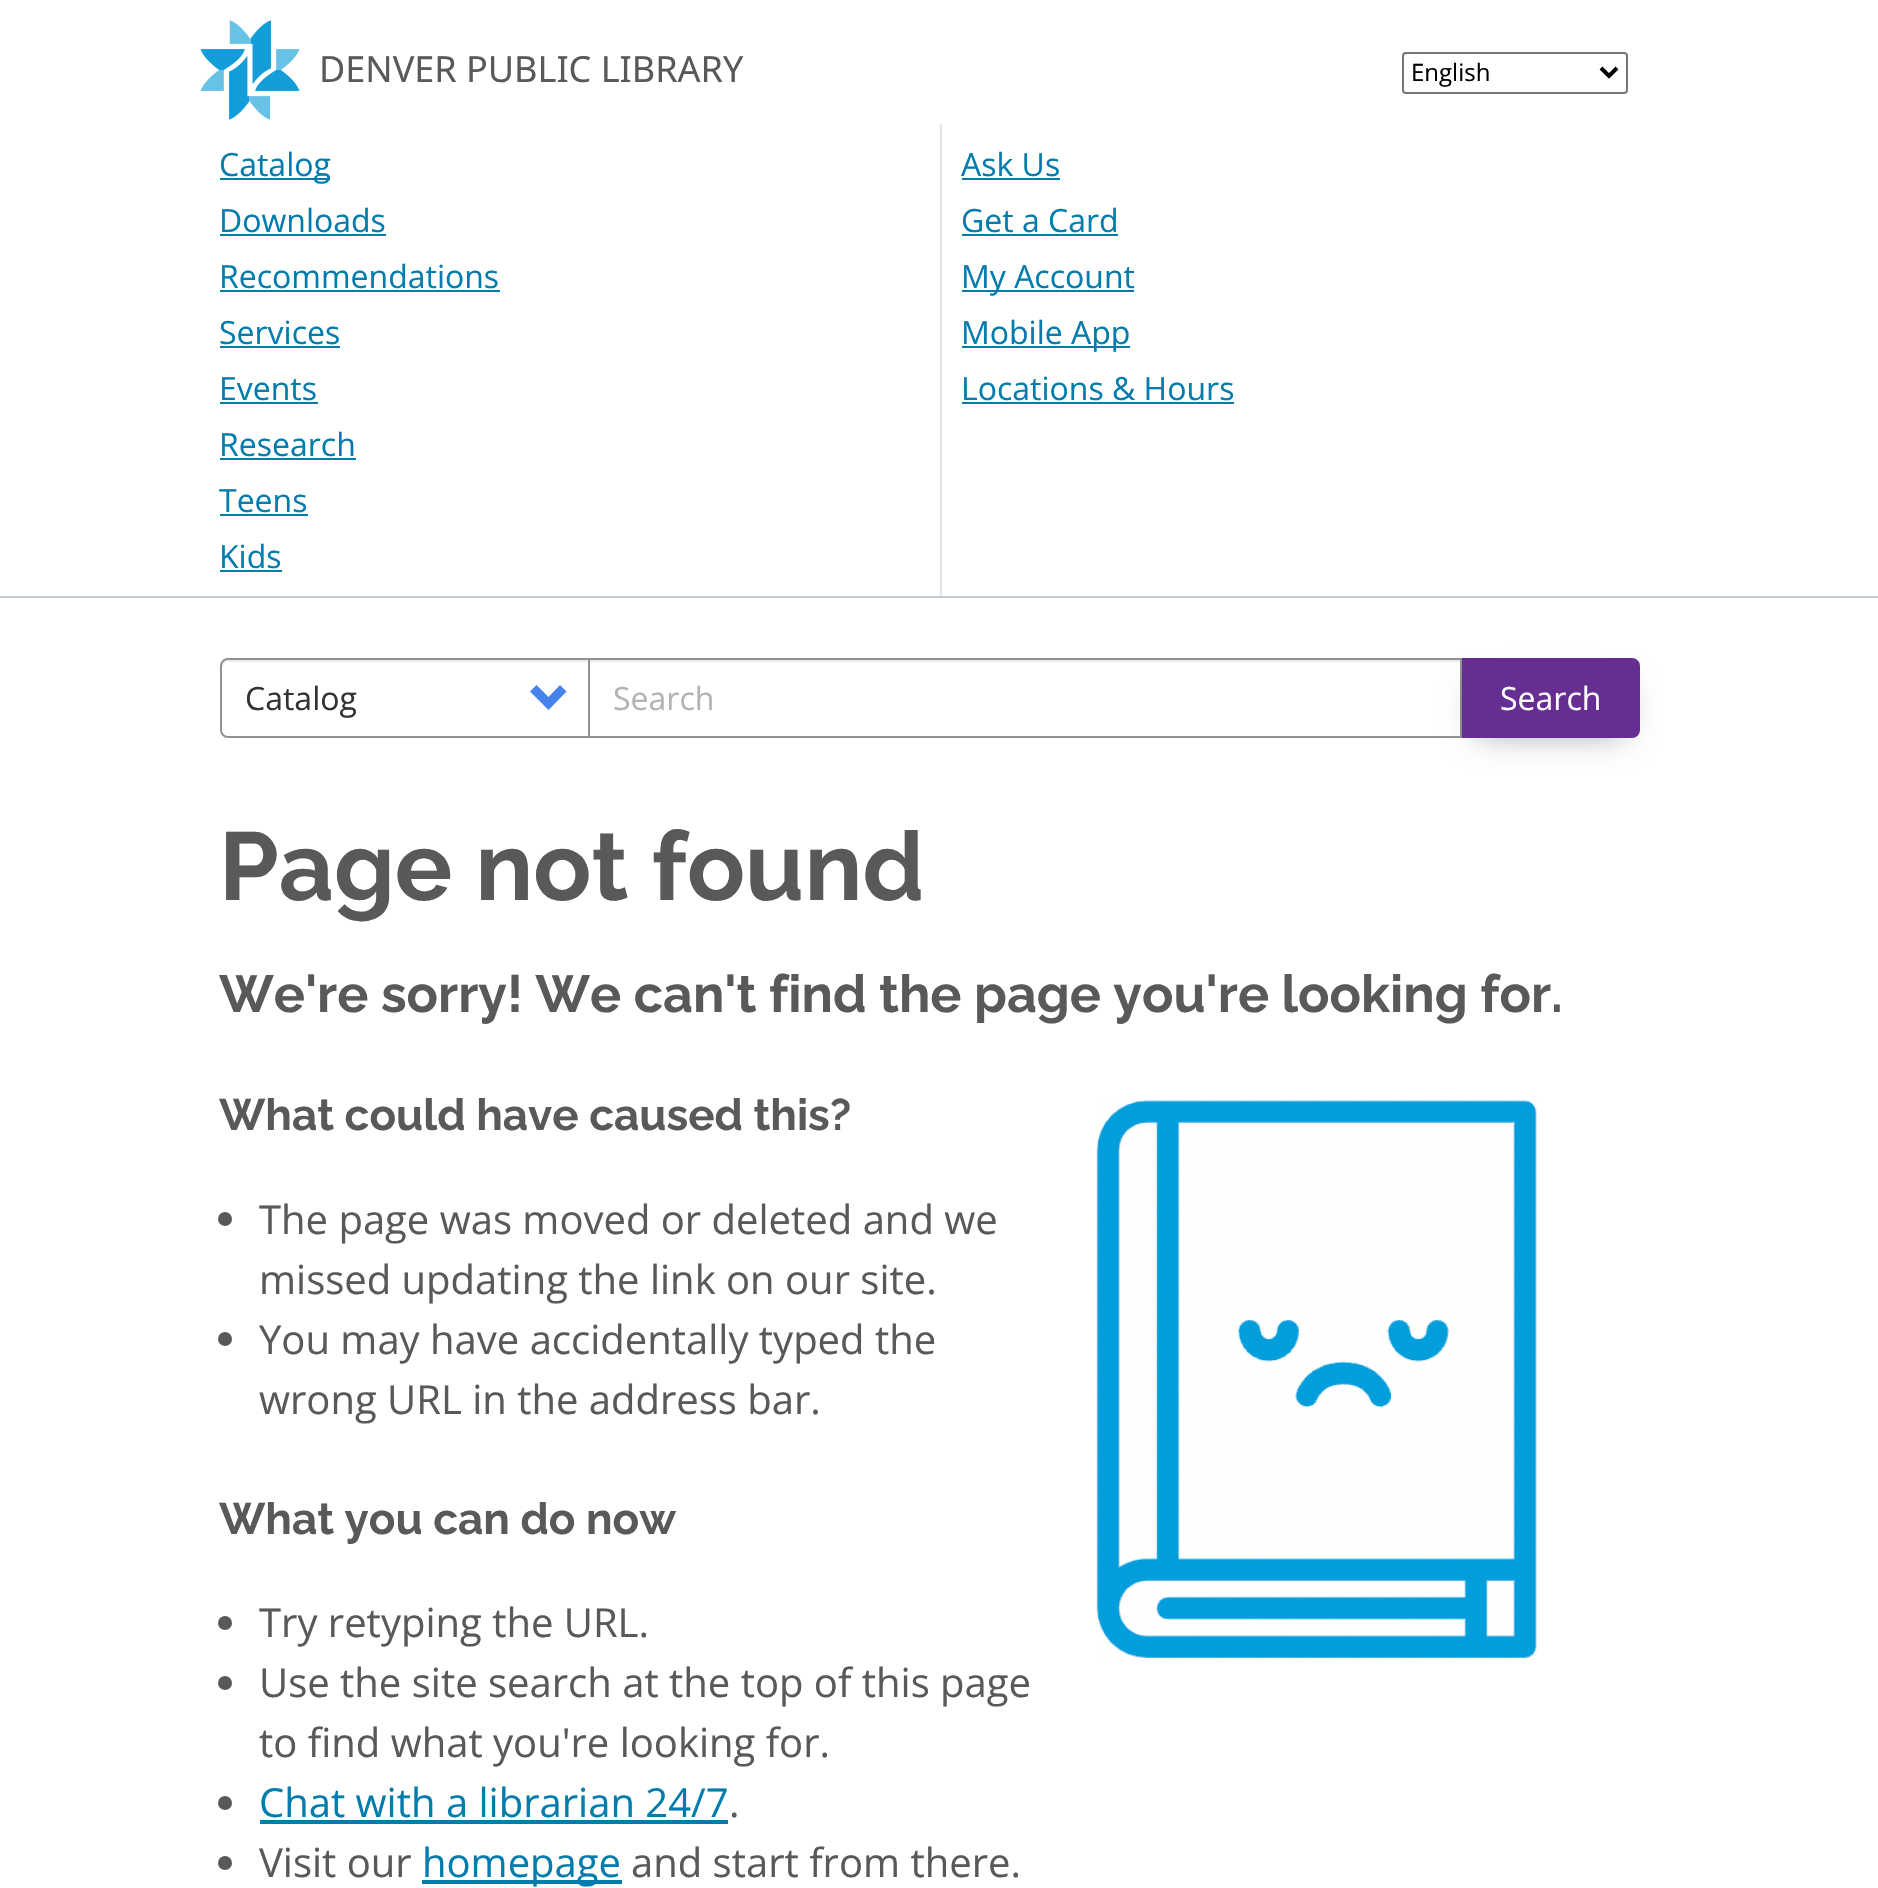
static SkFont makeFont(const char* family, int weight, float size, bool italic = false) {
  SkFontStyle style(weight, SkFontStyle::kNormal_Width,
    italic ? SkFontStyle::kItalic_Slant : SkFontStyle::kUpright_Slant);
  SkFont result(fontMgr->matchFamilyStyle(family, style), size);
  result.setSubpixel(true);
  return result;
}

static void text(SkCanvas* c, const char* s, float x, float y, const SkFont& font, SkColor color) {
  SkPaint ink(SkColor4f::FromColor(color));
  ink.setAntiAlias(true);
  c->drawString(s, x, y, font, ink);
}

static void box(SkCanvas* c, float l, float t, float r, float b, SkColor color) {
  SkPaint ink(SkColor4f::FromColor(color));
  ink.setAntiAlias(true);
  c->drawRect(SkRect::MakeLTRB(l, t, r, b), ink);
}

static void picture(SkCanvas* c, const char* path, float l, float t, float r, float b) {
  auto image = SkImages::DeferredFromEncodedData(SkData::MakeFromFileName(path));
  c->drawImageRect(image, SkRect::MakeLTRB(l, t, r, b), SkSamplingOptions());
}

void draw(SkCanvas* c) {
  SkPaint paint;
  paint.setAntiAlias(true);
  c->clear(0xffffffff);
  box(c, 0, 596, 1878, 598, 0xffc2cdd3);
  picture(c, "img_01.png", 200, 20, 300, 120);
  SkFont face1 = makeFont("Noto Sans", 400, 36);
  text(c, "DENVER PUBLIC LIBRARY", 319, 82, face1, 0xff58595b);
  paint.setStyle(SkPaint::kStroke_Style);
  paint.setStrokeWidth(2);
  paint.setColor(0xff767676);
  c->drawRoundRect(SkRect::MakeLTRB(1403, 53, 1627, 93), 3, 3, paint);
  paint.setStrokeWidth(4);
  paint.setColor(0xff000000);
  c->drawPath(SkPathBuilder().moveTo(1601, 68).lineTo(1609, 76).lineTo(1617, 68).detach(), paint);
  SkFont face2 = makeFont("Open Sans", 400, 24);
  text(c, "English", 1411, 81, face2, 0xff000000);
  box(c, 220, 178, 330, 180, 0xff017cad);
  SkFont face3 = makeFont("Open Sans", 400, 32);
  text(c, "Catalog", 219, 176, face3, 0xff017cad);
  text(c, "Downloads", 219, 232, face3, 0xff017cad);
  box(c, 220, 234, 386, 236, 0xff017cad);
  text(c, "Recommendations", 219, 288, face3, 0xff017cad);
  box(c, 220, 290, 500, 292, 0xff017cad);
  text(c, "Services", 219, 344, face3, 0xff017cad);
  box(c, 220, 346, 340, 348, 0xff017cad);
  text(c, "Events", 219, 400, face3, 0xff017cad);
  box(c, 220, 402, 318, 404, 0xff017cad);
  text(c, "Research", 219, 456, face3, 0xff017cad);
  box(c, 220, 458, 356, 460, 0xff017cad);
  text(c, "Teens", 219, 512, face3, 0xff017cad);
  box(c, 220, 514, 308, 516, 0xff017cad);
  text(c, "Kids", 219, 568, face3, 0xff017cad);
  box(c, 220, 570, 282, 572, 0xff017cad);
  box(c, 940, 124, 942, 596, 0xffe0e5e8);
  text(c, "Ask Us", 961, 176, face3, 0xff017cad);
  box(c, 962, 178, 1060, 180, 0xff017cad);
  text(c, "Get a Card", 961, 232, face3, 0xff017cad);
  box(c, 962, 234, 1118, 236, 0xff017cad);
  box(c, 962, 290, 1134, 292, 0xff017cad);
  text(c, "My Account", 961, 288, face3, 0xff017cad);
  box(c, 962, 346, 1130, 348, 0xff017cad);
  text(c, "Mobile App", 961, 344, face3, 0xff017cad);
  text(c, "Locations & Hours", 961, 400, face3, 0xff017cad);
  box(c, 962, 402, 1234, 404, 0xff017cad);
  paint.setStyle(SkPaint::kFill_Style);
  paint.setColor(0xffececec);
  c->drawPath(SkPathBuilder().moveTo(228, 662).lineTo(588, 662).lineTo(588, 660).lineTo(228, 660).cubicTo(225, 660, 222, 663, 222, 666).lineTo(222, 668).cubicTo(222, 665, 225, 662, 228, 662).close().detach(), paint);
  paint.setStyle(SkPaint::kStroke_Style);
  paint.setStrokeWidth(2);
  paint.setColor(0xff929090);
  c->drawPath(SkPathBuilder().moveTo(228, 659).lineTo(589, 659).lineTo(589, 737).lineTo(228, 737).cubicTo(224, 737, 221, 734, 221, 730).lineTo(221, 666).cubicTo(221, 662, 224, 659, 228, 659).close().detach(), paint);
  text(c, "Catalog", 245, 710, face3, 0xff333333);
  paint.setStyle(SkPaint::kFill_Style);
  paint.setColor(0xff4582ec);
  c->drawPath(SkPathBuilder().moveTo(566.5f, 691.5f).lineTo(548.5f, 710).lineTo(530, 691.5f).lineTo(536.5f, 685).lineTo(548.5f, 697).lineTo(560, 685).close().detach(), paint);
  box(c, 590, 660, 1460, 662, 0xffececec);
  box(c, 590, 658, 1462, 660, 0xff929090);
  box(c, 1460, 658, 1462, 738, 0xff929090);
  box(c, 590, 736, 1462, 738, 0xff929090);
  text(c, "Search", 613, 710, face3, 0xffb3b3b3);
  paint.setColor(0x5e000000);
  paint.setMaskFilter(SkMaskFilter::MakeBlur(kNormal_SkBlurStyle, 16));
  c->drawRect(SkRect::MakeLTRB(1478, 686, 1624, 734), paint);
  paint.setMaskFilter(nullptr);
  paint.setColor(0xff662e93);
  c->drawPath(SkPathBuilder().moveTo(1463, 659).lineTo(1632, 659).cubicTo(1636, 659, 1639, 662, 1639, 666).lineTo(1639, 730).cubicTo(1639, 734, 1636, 737, 1632, 737).lineTo(1463, 737).close().detach(), paint);
  paint.setStyle(SkPaint::kStroke_Style);
  c->drawPath(SkPathBuilder().moveTo(1463, 659).lineTo(1632, 659).cubicTo(1636, 659, 1639, 662, 1639, 666).lineTo(1639, 730).cubicTo(1639, 734, 1636, 737, 1632, 737).lineTo(1463, 737).close().detach(), paint);
  text(c, "Search", 1500, 710, face3, 0xffffffff);
  SkFont face4 = makeFont("Raleway", 700, 96);
  text(c, "Page not found", 219, 900, face4, 0xff58595b);
  SkFont face5 = makeFont("Raleway", 700, 52);
  text(c, "We're sorry! We can't find the page you're looking for.", 219, 1012, face5, 0xff58595b);
  SkFont face6 = makeFont("Raleway", 700, 44);
  text(c, "What could have caused this?", 219, 1130, face6, 0xff58595b);
  picture(c, "img_02.png", 1096, 1100, 1537, 1658);
  paint.setStyle(SkPaint::kFill_Style);
  paint.setColor(0xff58595b);
  c->drawCircle(225, 1219, 7, paint);
  SkFont face7 = makeFont("Open Sans", 400, 40);
  text(c, "The page was moved or deleted and we", 259, 1234, face7, 0xff58595b);
  text(c, "missed updating the link on our site.", 259, 1294, face7, 0xff58595b);
  c->drawCircle(225, 1339, 7, paint);
  text(c, "You may have accidentally typed the", 259, 1354, face7, 0xff58595b);
  text(c, "wrong URL in the address bar.", 259, 1414, face7, 0xff58595b);
  text(c, "What you can do now", 219, 1534, face6, 0xff58595b);
  c->drawCircle(225, 1623, 7, paint);
  text(c, "Try retyping the URL.", 259, 1637, face7, 0xff58595b);
  c->drawCircle(225, 1683, 7, paint);
  text(c, "Use the site search at the top of this page", 259, 1697, face7, 0xff58595b);
  text(c, "to find what you're looking for.", 259, 1757, face7, 0xff58595b);
  c->drawCircle(225, 1803, 7, paint);
  text(c, "Chat with a librarian 24/7", 259, 1817, face7, 0xff017cad);
  box(c, 260, 1820, 728, 1824, 0xff017cad);
  text(c, ".", 729, 1817, face7, 0xff58595b);
  c->drawCircle(225, 1863, 7, paint);
  text(c, "Visit our", 259, 1877, face7, 0xff58595b);
  box(c, 422, 1880, 622, 1884, 0xff017cad);
  text(c, "homepage", 422, 1877, face7, 0xff017cad);
  text(c, "and start from there.", 631, 1877, face7, 0xff58595b);
}
